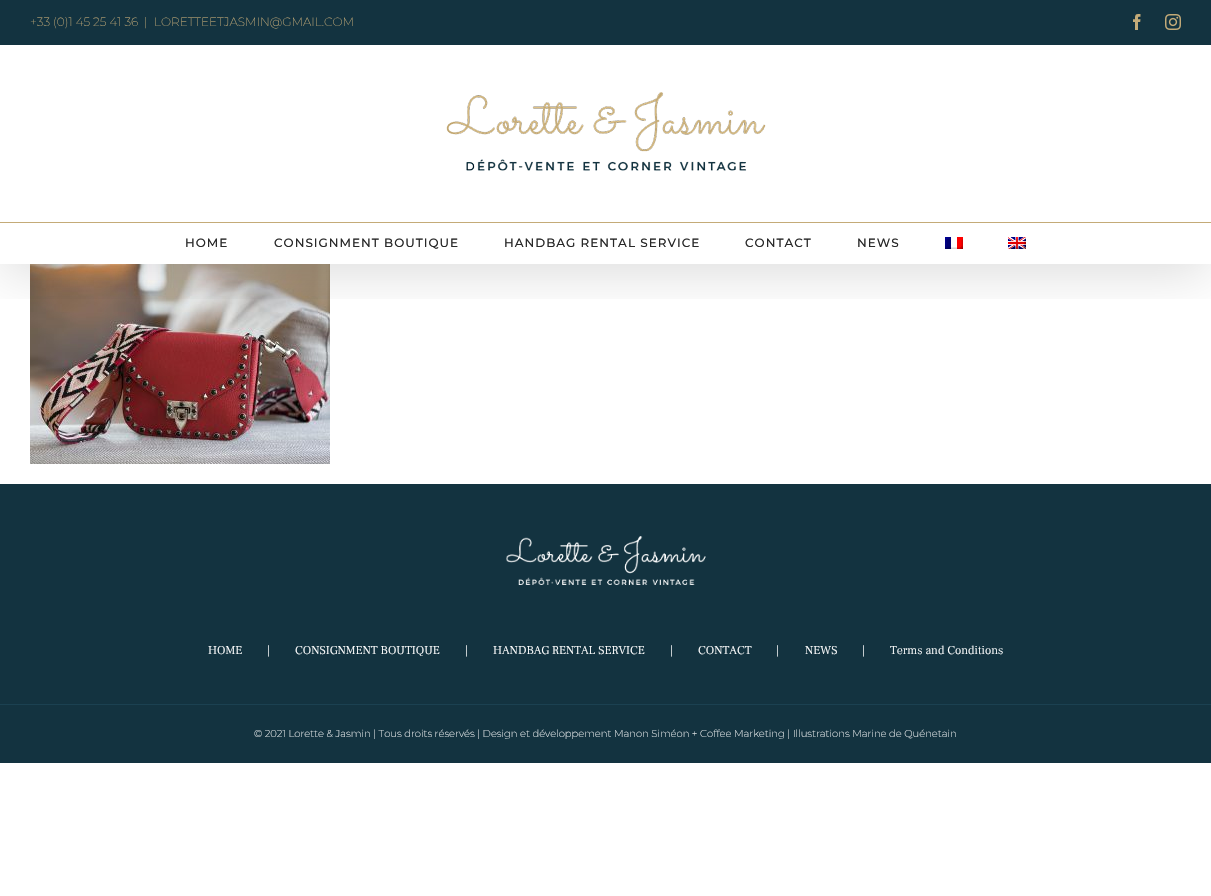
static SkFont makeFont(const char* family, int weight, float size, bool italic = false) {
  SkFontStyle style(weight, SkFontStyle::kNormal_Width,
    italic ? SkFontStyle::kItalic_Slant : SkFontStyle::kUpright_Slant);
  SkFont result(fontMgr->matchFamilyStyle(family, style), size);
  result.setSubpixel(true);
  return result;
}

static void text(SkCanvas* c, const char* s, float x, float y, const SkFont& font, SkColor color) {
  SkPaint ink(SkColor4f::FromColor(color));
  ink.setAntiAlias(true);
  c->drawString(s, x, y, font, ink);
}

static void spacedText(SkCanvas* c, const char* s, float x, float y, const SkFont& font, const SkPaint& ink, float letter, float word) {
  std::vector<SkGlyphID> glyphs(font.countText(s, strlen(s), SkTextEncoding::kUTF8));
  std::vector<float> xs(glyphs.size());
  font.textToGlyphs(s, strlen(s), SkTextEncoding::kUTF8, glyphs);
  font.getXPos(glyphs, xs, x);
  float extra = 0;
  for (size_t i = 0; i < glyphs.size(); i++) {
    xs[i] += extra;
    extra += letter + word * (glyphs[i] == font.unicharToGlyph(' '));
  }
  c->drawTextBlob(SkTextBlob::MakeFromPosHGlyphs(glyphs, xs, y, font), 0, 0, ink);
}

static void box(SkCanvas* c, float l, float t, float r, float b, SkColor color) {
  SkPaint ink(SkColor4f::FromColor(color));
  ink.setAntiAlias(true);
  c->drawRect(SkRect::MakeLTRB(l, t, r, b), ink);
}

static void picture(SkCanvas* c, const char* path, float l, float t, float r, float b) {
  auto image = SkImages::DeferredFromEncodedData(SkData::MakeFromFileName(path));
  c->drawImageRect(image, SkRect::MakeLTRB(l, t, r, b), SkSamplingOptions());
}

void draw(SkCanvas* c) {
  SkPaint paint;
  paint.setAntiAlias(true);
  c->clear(0xffffffff);
  picture(c, "img_06.png", 30, 264, 330, 464);
  c->save();
  c->clipRect(SkRect::MakeLTRB(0, 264, 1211, 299));
  paint.setColor(0x24000000);
  paint.setMaskFilter(SkMaskFilter::MakeBlur(kNormal_SkBlurStyle, 25));
  c->drawRect(SkRect::MakeLTRB(2, 12, 1209, 272), paint);
  paint.setMaskFilter(nullptr);
  c->restore();
  box(c, 0, 0, 1211, 45, 0xff133340);
  SkFont face1 = makeFont("Montserrat", 100, 12);
  text(c, "+33 (0)1 45 25 41 36", 30, 26, face1, 0xffc4ab78);
  text(c, "|", 144, 26, face1, 0xffc4ab78);
  text(c, "LORETTEETJASMIN@GMAIL.COM", 154, 26, face1, 0xffc4ab78);
  picture(c, "img_01.png", 1133, 14, 1141, 30);
  picture(c, "img_02.png", 1165, 14, 1181, 30);
  picture(c, "img_03.png", 446, 92, 766, 171);
  box(c, 0, 222, 1211, 223, 0xffc4ab78);
  SkFont face2 = makeFont("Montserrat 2", 100, 12);
  paint.setColor(0xff282828);
  spacedText(c, "HOME", 185, 247, face2, paint, 1, 0);
  spacedText(c, "CONSIGNMENT BOUTIQUE", 274, 247, face2, paint, 1, 0);
  spacedText(c, "HANDBAG RENTAL SERVICE", 504, 247, face2, paint, 1, 0);
  spacedText(c, "CONTACT", 745, 247, face2, paint, 1, 0);
  spacedText(c, "NEWS", 857, 247, face2, paint, 1, 0);
  picture(c, "img_04.png", 945, 237, 963, 249);
  picture(c, "img_05.png", 1008, 237, 1026, 249);
  box(c, 0, 484, 1211, 704, 0xff133340);
  picture(c, "img_07.png", 506, 536, 706, 585);
  SkFont face3 = makeFont("Frank Ruhl Libre", 300, 12);
  text(c, "HOME", 208, 654, face3, 0xffffffff);
  text(c, "|", 267, 654, face3, 0xffffffff);
  text(c, "CONSIGNMENT BOUTIQUE", 295, 654, face3, 0xffffffff);
  text(c, "|", 465, 654, face3, 0xffffffff);
  text(c, "HANDBAG RENTAL SERVICE", 493, 654, face3, 0xffffffff);
  text(c, "|", 670, 654, face3, 0xffffffff);
  text(c, "CONTACT", 698, 654, face3, 0xffffffff);
  text(c, "|", 776, 654, face3, 0xffffffff);
  text(c, "NEWS", 805, 654, face3, 0xffffffff);
  text(c, "|", 862, 654, face3, 0xffffffff);
  text(c, "Terms and Conditions", 890, 654, face3, 0xffffffff);
  box(c, 0, 705, 1211, 763, 0xff133340);
  box(c, 0, 704, 1211, 705, 0xff1b4151);
  SkFont face4 = makeFont("Montserrat", 100, 10);
  text(c, "© 2021 Lorette & Jasmin | Tous droits réservés | Design et développement Manon Siméon + Coffee Marketing | Illustrations Marine de Quénetain", 254, 737, face4, 0xffffffff);
}
